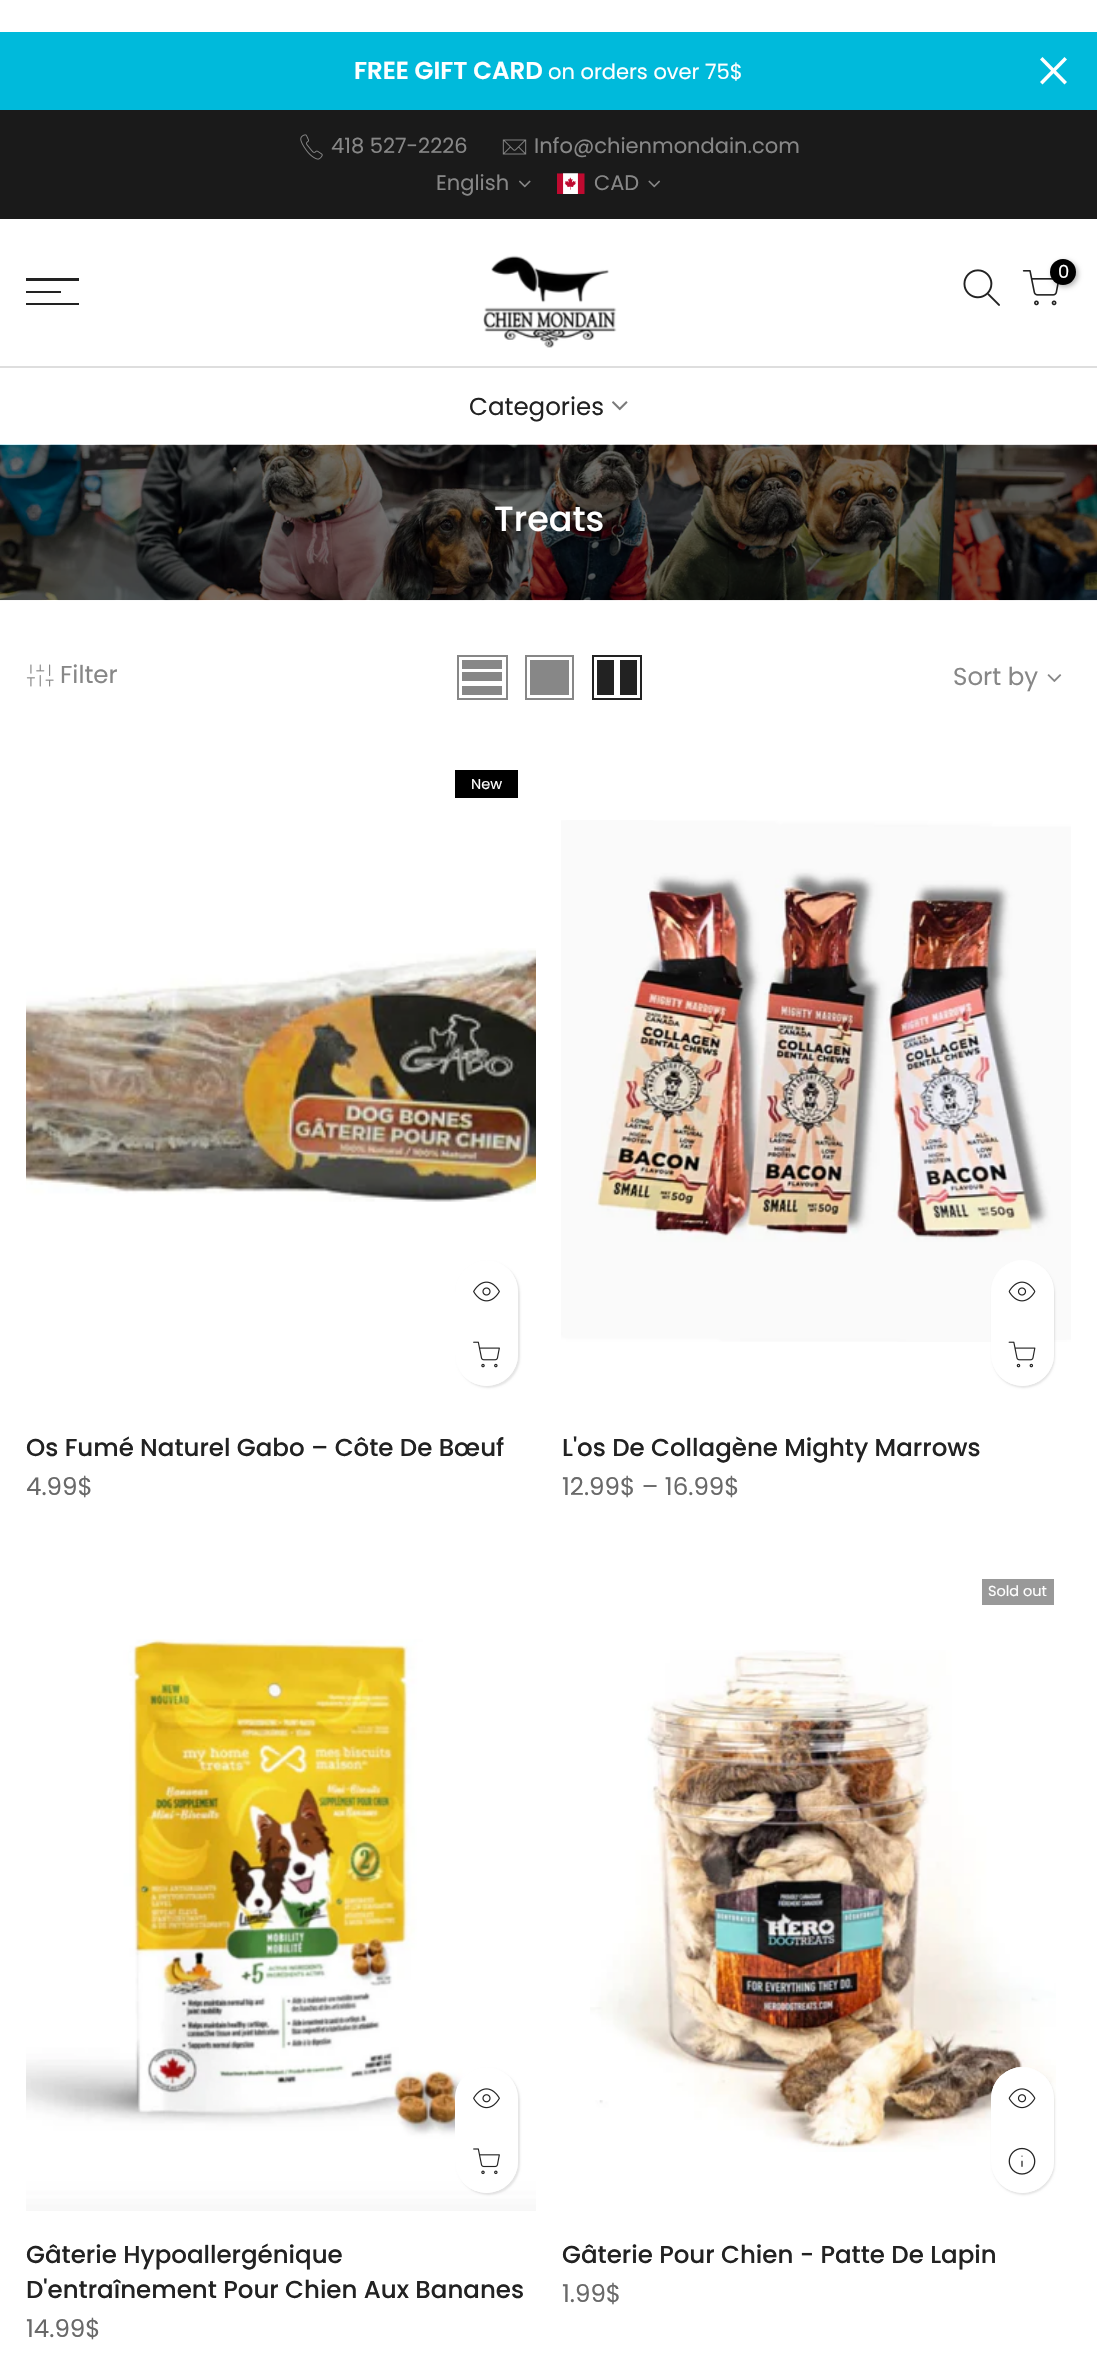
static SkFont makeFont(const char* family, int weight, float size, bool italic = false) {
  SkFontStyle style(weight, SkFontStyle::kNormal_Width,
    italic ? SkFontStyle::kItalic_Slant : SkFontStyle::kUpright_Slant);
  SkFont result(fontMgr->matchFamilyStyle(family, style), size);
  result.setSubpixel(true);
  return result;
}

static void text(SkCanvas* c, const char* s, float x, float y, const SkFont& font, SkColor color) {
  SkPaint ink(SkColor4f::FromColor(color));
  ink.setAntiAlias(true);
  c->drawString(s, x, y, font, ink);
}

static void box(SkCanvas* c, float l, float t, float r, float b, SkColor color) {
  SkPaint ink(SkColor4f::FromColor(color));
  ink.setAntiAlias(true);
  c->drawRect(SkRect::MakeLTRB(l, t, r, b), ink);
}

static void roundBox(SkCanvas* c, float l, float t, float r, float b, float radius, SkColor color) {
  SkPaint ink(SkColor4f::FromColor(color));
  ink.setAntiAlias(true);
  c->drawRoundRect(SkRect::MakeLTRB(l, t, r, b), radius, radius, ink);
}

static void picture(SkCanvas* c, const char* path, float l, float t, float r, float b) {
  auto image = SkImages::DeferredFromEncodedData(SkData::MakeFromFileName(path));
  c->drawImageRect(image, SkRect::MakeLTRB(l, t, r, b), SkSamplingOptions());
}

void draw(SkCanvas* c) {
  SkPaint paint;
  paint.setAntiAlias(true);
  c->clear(0xffffffff);
  box(c, 0, 32, 1097, 110, 0xff00badb);
  SkFont face1 = makeFont("Poppins", 600, 24.5f);
  text(c, "FREE GIFT CARD", 354, 79, face1, 0xffffffff);
  SkFont face2 = makeFont("Poppins", 400, 21);
  text(c, "on orders over 75$", 548, 79, face2, 0xffffffff);
  paint.setColor(0xffffffff);
  c->drawPath(SkPathBuilder().moveTo(1042.5f, 57).lineTo(1067, 82).lineTo(1064.5f, 84.5f).lineTo(1040, 59.5f).close().detach(), paint);
  c->drawPath(SkPathBuilder().moveTo(1040, 82).lineTo(1064.5f, 57).lineTo(1067, 59.5f).lineTo(1042.5f, 84.5f).close().detach(), paint);
  box(c, 0, 110, 1097, 219, 0xff1a1a1a);
  picture(c, "img_01.png", 300, 134, 323, 160);
  text(c, "418 527-2226", 331, 153, face2, 0xff878787);
  picture(c, "img_02.png", 502, 139, 527, 155);
  text(c, "Info@chienmondain.com", 534, 153, face2, 0xff878787);
  text(c, "English", 436, 190, face2, 0xff878787);
  picture(c, "img_03.png", 519, 180, 531, 188);
  picture(c, "img_04.png", 557, 173, 585, 194);
  text(c, "CAD", 594, 190, face2, 0xff878787);
  picture(c, "img_05.png", 648, 180, 660, 188);
  picture(c, "img_06.png", 483, 255, 617, 348);
  picture(c, "img_07.png", 963, 269, 1000, 306);
  picture(c, "img_08.png", 1022, 270, 1059, 306);
  paint.setColor(0x4d000000);
  paint.setMaskFilter(SkMaskFilter::MakeBlur(kNormal_SkBlurStyle, 2.5f));
  c->drawRoundRect(SkRect::MakeLTRB(1052, 261, 1078, 287), 13, 13, paint);
  paint.setMaskFilter(nullptr);
  paint.setColor(0xff000000);
  c->drawCircle(1063, 272, 13, paint);
  SkFont face3 = makeFont("Poppins", 400, 18);
  text(c, "0", 1058, 278, face3, 0xffffffff);
  box(c, 26, 278, 79, 281, 0xff222222);
  box(c, 26, 291, 61, 293, 0xff222222);
  box(c, 26, 303, 79, 305, 0xff222222);
  box(c, 0, 366, 1097, 368, 0xffdedede);
  SkFont face4 = makeFont("Poppins", 400, 24.5f);
  text(c, "Categories", 469, 415, face4, 0xff222222);
  picture(c, "img_09.png", 612, 401, 628, 411);
  picture(c, "img_10.png", 0, 444, 1097, 601);
  SkFont face5 = makeFont("Poppins", 500, 35);
  text(c, "Treats", 494, 531, face5, 0xffffffff);
  picture(c, "img_11.png", 26, 664, 54, 687);
  text(c, "Filter", 60, 683, face4, 0xff878787);
  paint.setStyle(SkPaint::kStroke_Style);
  paint.setStrokeWidth(2);
  paint.setColor(0xff878787);
  c->drawRect(SkRect::MakeLTRB(458, 656, 507, 699), paint);
  box(c, 462, 686, 502, 695, 0xff878787);
  box(c, 462, 672, 502, 681, 0xff878787);
  box(c, 462, 660, 502, 669, 0xff878787);
  c->drawRect(SkRect::MakeLTRB(526, 656, 573, 699), paint);
  box(c, 530, 660, 569, 695, 0xff878787);
  paint.setColor(0xff222222);
  c->drawRect(SkRect::MakeLTRB(593, 656, 641, 699), paint);
  box(c, 620, 660, 637, 695, 0xff222222);
  box(c, 597, 660, 614, 695, 0xff222222);
  text(c, "Sort by", 953, 685, face4, 0xff878787);
  picture(c, "img_12.png", 1047, 674, 1062, 682);
  box(c, 455, 770, 518, 798, 0xff000000);
  SkFont face6 = makeFont("Poppins", 400, 14.5f);
  text(c, "New", 471, 789, face6, 0xffffffff);
  picture(c, "img_13.png", 26, 948, 536, 1202);
  paint.setStyle(SkPaint::kFill_Style);
  paint.setColor(0x1a000000);
  paint.setMaskFilter(SkMaskFilter::MakeBlur(kNormal_SkBlurStyle, 1));
  c->drawRoundRect(SkRect::MakeLTRB(457, 1262, 520, 1388), 31.5f, 31.5f, paint);
  paint.setMaskFilter(nullptr);
  roundBox(c, 455, 1260, 518, 1386, 31.5f, 0xffffffff);
  paint.setColor(0xffffffff);
  c->drawCircle(486.5f, 1291.5f, 31.5f, paint);
  picture(c, "img_14.png", 473, 1281, 500, 1302);
  c->drawCircle(486.5f, 1354.5f, 31.5f, paint);
  picture(c, "img_15.png", 473, 1341, 500, 1368);
  SkFont face7 = makeFont("Poppins", 500, 24.5f);
  text(c, "Os Fumé Naturel Gabo – Côte De Bœuf", 26, 1456, face7, 0xff222222);
  text(c, "4.99$", 26, 1495, face4, 0xff696969);
  picture(c, "img_16.png", 561, 820, 1071, 1342);
  paint.setColor(0x1a000000);
  paint.setMaskFilter(SkMaskFilter::MakeBlur(kNormal_SkBlurStyle, 1));
  c->drawRoundRect(SkRect::MakeLTRB(992, 1262, 1055, 1388), 31.5f, 31.5f, paint);
  paint.setMaskFilter(nullptr);
  roundBox(c, 991, 1260, 1054, 1386, 31.5f, 0xffffffff);
  paint.setColor(0xffffffff);
  c->drawCircle(1022.5f, 1291.5f, 31.5f, paint);
  picture(c, "img_17.png", 1008, 1281, 1036, 1302);
  paint.setStyle(SkPaint::kStroke_Style);
  paint.setStrokeWidth(1.8f);
  c->drawPath(SkPathBuilder().moveTo(1011.5f, 1281).cubicTo(1015, 1277.5f, 1020, 1276, 1025, 1277).cubicTo(1042.5f, 1280.5f, 1039.5f, 1306.5f, 1022, 1306.5f).cubicTo(1018, 1306.5f, 1014.5f, 1305, 1011.5f, 1302).moveTo(1011.5f, 1302).cubicTo(1006, 1296.5f, 1006, 1286.5f, 1011.5f, 1281).detach(), paint);
  paint.setStyle(SkPaint::kFill_Style);
  c->drawCircle(1022.5f, 1354.5f, 31.5f, paint);
  picture(c, "img_18.png", 1008, 1341, 1036, 1368);
  text(c, "L'os De Collagène Mighty Marrows", 562, 1456, face7, 0xff222222);
  text(c, "12.99$ – 16.99$", 562, 1495, face4, 0xff696969);
  picture(c, "img_19.png", 26, 1639, 536, 2211);
  paint.setColor(0x1a000000);
  paint.setMaskFilter(SkMaskFilter::MakeBlur(kNormal_SkBlurStyle, 1));
  c->drawRoundRect(SkRect::MakeLTRB(457, 2069, 520, 2195), 31.5f, 31.5f, paint);
  paint.setMaskFilter(nullptr);
  roundBox(c, 455, 2067, 518, 2193, 31.5f, 0xffffffff);
  paint.setColor(0xffffffff);
  c->drawCircle(486.5f, 2098.5f, 31.5f, paint);
  picture(c, "img_20.png", 473, 2088, 500, 2109);
  c->drawCircle(486.5f, 2161.5f, 31.5f, paint);
  picture(c, "img_21.png", 473, 2148, 500, 2175);
  text(c, "Gâterie Hypoallergénique", 26, 2263, face7, 0xff222222);
  text(c, "D'entraînement Pour Chien Aux Bananes", 26, 2298, face7, 0xff222222);
  text(c, "14.99$", 26, 2337, face4, 0xff696969);
  box(c, 982, 1579, 1054, 1605, 0xff999999);
  text(c, "Sold out", 988, 1596, face6, 0xffffffff);
  picture(c, "img_22.png", 590, 1650, 1056, 2152);
  paint.setColor(0x1a000000);
  paint.setMaskFilter(SkMaskFilter::MakeBlur(kNormal_SkBlurStyle, 1));
  c->drawRoundRect(SkRect::MakeLTRB(992, 2069, 1055, 2195), 31.5f, 31.5f, paint);
  paint.setMaskFilter(nullptr);
  roundBox(c, 991, 2067, 1054, 2193, 31.5f, 0xffffffff);
  paint.setColor(0xffffffff);
  c->drawCircle(1022.5f, 2098.5f, 31.5f, paint);
  picture(c, "img_23.png", 1008, 2088, 1036, 2109);
  paint.setStyle(SkPaint::kStroke_Style);
  c->drawPath(SkPathBuilder().moveTo(1011.5f, 2087.5f).cubicTo(1015, 2084, 1020, 2082.5f, 1025, 2083.5f).cubicTo(1042.5f, 2087, 1039.5f, 2113, 1022, 2113).cubicTo(1018, 2113, 1014.5f, 2111.5f, 1011.5f, 2109).moveTo(1011.5f, 2109).cubicTo(1006, 2103, 1006, 2093.5f, 1011.5f, 2087.5f).detach(), paint);
  paint.setStyle(SkPaint::kFill_Style);
  c->drawCircle(1022.5f, 2161.5f, 31.5f, paint);
  picture(c, "img_24.png", 1008, 2147, 1036, 2175);
  text(c, "Gâterie Pour Chien - Patte De Lapin", 562, 2263, face7, 0xff222222);
  text(c, "1.99$", 562, 2302, face4, 0xff696969);
}
